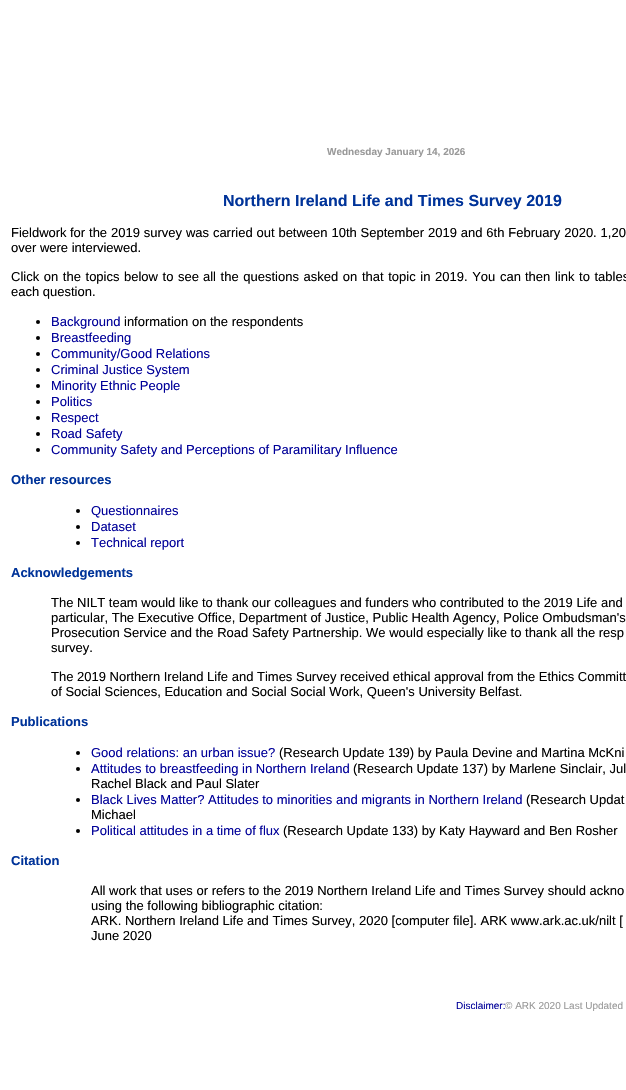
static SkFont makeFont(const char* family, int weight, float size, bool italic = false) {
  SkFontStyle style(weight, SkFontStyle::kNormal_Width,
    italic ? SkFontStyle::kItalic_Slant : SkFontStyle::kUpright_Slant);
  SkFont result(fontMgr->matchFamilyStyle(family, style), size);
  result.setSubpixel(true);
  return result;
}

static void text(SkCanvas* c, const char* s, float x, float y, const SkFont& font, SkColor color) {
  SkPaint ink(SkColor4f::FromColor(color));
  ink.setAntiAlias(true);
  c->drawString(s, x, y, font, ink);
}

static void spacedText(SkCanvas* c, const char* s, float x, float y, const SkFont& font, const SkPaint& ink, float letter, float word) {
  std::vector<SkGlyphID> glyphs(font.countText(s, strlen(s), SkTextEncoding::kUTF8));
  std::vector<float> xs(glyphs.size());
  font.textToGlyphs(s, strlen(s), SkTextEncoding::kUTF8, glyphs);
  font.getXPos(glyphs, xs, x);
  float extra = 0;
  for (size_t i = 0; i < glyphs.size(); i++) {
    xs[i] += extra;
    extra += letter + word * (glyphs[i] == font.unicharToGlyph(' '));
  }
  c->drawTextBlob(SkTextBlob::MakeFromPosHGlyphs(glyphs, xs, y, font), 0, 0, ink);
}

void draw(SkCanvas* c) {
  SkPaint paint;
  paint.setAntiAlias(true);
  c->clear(0xffffffff);
  SkFont face1 = makeFont("Liberation Sans", 700, 10);
  text(c, "Wednesday January 14, 2026", 327, 155, face1, 0xff999999);
  SkFont face2 = makeFont("Liberation Sans", 700, 16);
  text(c, "Northern Ireland Life and Times Survey 2019", 223, 206, face2, 0xff003399);
  SkFont face3 = makeFont("Liberation Sans", 400, 13);
  text(c, "Fieldwork", 11, 237, face3, 0xff000000);
  paint.setColor(0xff000000);
  spacedText(c, "for the 2019 survey was carried out between 10th September 2019 and 6th February 2020. 1,20", 70, 237, face3, paint, 0, 0.25f);
  text(c, "over were interviewed.", 11, 252, face3, 0xff000000);
  spacedText(c, "Click on the topics", 11, 281, face3, paint, 0, 1);
  spacedText(c, "below to see", 124, 281, face3, paint, 0, 1);
  spacedText(c, "all the questions asked on that topic in 2019. You can", 203, 281, face3, paint, 0, 1);
  spacedText(c, "then link to tables", 525, 281, face3, paint, 0, 1);
  text(c, "each question.", 11, 296, face3, 0xff000000);
  c->drawCircle(38, 322, 2, paint);
  text(c, "Background", 51, 326, face3, 0xff000099);
  text(c, "information on the respondents", 124, 326, face3, 0xff000000);
  c->drawCircle(38, 338, 2, paint);
  text(c, "Breastfeeding", 51, 342, face3, 0xff000099);
  c->drawCircle(38, 354, 2, paint);
  text(c, "Community/Good Relations", 51, 358, face3, 0xff000099);
  c->drawCircle(38, 370, 2, paint);
  text(c, "Criminal Justice System", 51, 374, face3, 0xff000099);
  c->drawCircle(38, 386, 2, paint);
  text(c, "Minority Ethnic People", 51, 390, face3, 0xff000099);
  c->drawCircle(38, 402, 2, paint);
  text(c, "Politics", 51, 406, face3, 0xff000099);
  c->drawCircle(38, 418, 2, paint);
  text(c, "Respect", 51, 422, face3, 0xff000099);
  c->drawCircle(38, 434, 2, paint);
  text(c, "Road Safety", 51, 438, face3, 0xff000099);
  c->drawCircle(38, 450, 2, paint);
  text(c, "Community Safety and Perceptions of Paramilitary Influence", 51, 454, face3, 0xff000099);
  SkFont face4 = makeFont("Liberation Sans", 700, 13);
  text(c, "Other resources", 11, 484, face4, 0xff003399);
  c->drawCircle(78, 511, 2, paint);
  text(c, "Questionnaires", 91, 515, face3, 0xff000099);
  c->drawCircle(78, 527, 2, paint);
  text(c, "Dataset", 91, 531, face3, 0xff000099);
  c->drawCircle(78, 543, 2, paint);
  text(c, "Technical report", 91, 547, face3, 0xff000099);
  text(c, "Acknowledgements", 11, 577, face4, 0xff003399);
  text(c, "The NILT team would like to thank our colleagues and funders who contributed to the 2019 Life and", 51, 607, face3, 0xff000000);
  text(c, "particular, The Executive Office, Department of Justice, Public Health Agency, Police Ombudsman's", 51, 622, face3, 0xff000000);
  text(c, "Prosecution Service and the Road Safety Partnership. We would especially like to thank all the resp", 51, 637, face3, 0xff000000);
  text(c, "survey.", 51, 652, face3, 0xff000000);
  text(c, "The 2019 Northern Ireland Life and Times Survey received ethical approval from the Ethics Committ", 51, 681, face3, 0xff000000);
  text(c, "of Social Sciences, Education and Social Social Work, Queen's University Belfast.", 51, 696, face3, 0xff000000);
  text(c, "Publications", 11, 726, face4, 0xff003399);
  c->drawCircle(78, 753, 2, paint);
  text(c, "Good relations: an urban issue?", 91, 757, face3, 0xff000099);
  text(c, "(Research Update 139) by Paula Devine and Martina McKni", 279, 757, face3, 0xff000000);
  c->drawCircle(78, 769, 2, paint);
  text(c, "Attitudes to breastfeeding in Northern Ireland", 91, 773, face3, 0xff000099);
  text(c, "(Research Update 137) by Marlene Sinclair, Jul", 353, 773, face3, 0xff000000);
  text(c, "Rachel Black and Paul Slater", 91, 788, face3, 0xff000000);
  c->drawCircle(78, 800, 2, paint);
  text(c, "Black Lives Matter? Attitudes to minorities and migrants in Northern Ireland", 91, 804, face3, 0xff000099);
  text(c, "(Research Updat", 526, 804, face3, 0xff000000);
  text(c, "Michael", 91, 819, face3, 0xff000000);
  c->drawCircle(78, 831, 2, paint);
  text(c, "Political attitudes in a time of flux", 91, 835, face3, 0xff000099);
  text(c, "(Research Update 133) by Katy Hayward and Ben Rosher", 283, 835, face3, 0xff000000);
  text(c, "Citation", 11, 865, face4, 0xff003399);
  text(c, "All work that uses or refers to the 2019 Northern Ireland Life and Times Survey should ackno", 91, 895, face3, 0xff000000);
  text(c, "using the following bibliographic citation:", 91, 910, face3, 0xff000000);
  text(c, "ARK. Northern Ireland Life and Times Survey, 2020 [computer file]. ARK www.ark.ac.uk/nilt [", 91, 925, face3, 0xff000000);
  text(c, "June 2020", 91, 940, face3, 0xff000000);
  SkFont face5 = makeFont("Liberation Sans", 400, 10);
  text(c, "Disclaimer:", 456, 1009, face5, 0xff000099);
  text(c, "© ARK 2020 Last Updated", 505, 1009, face5, 0xff999999);
}
